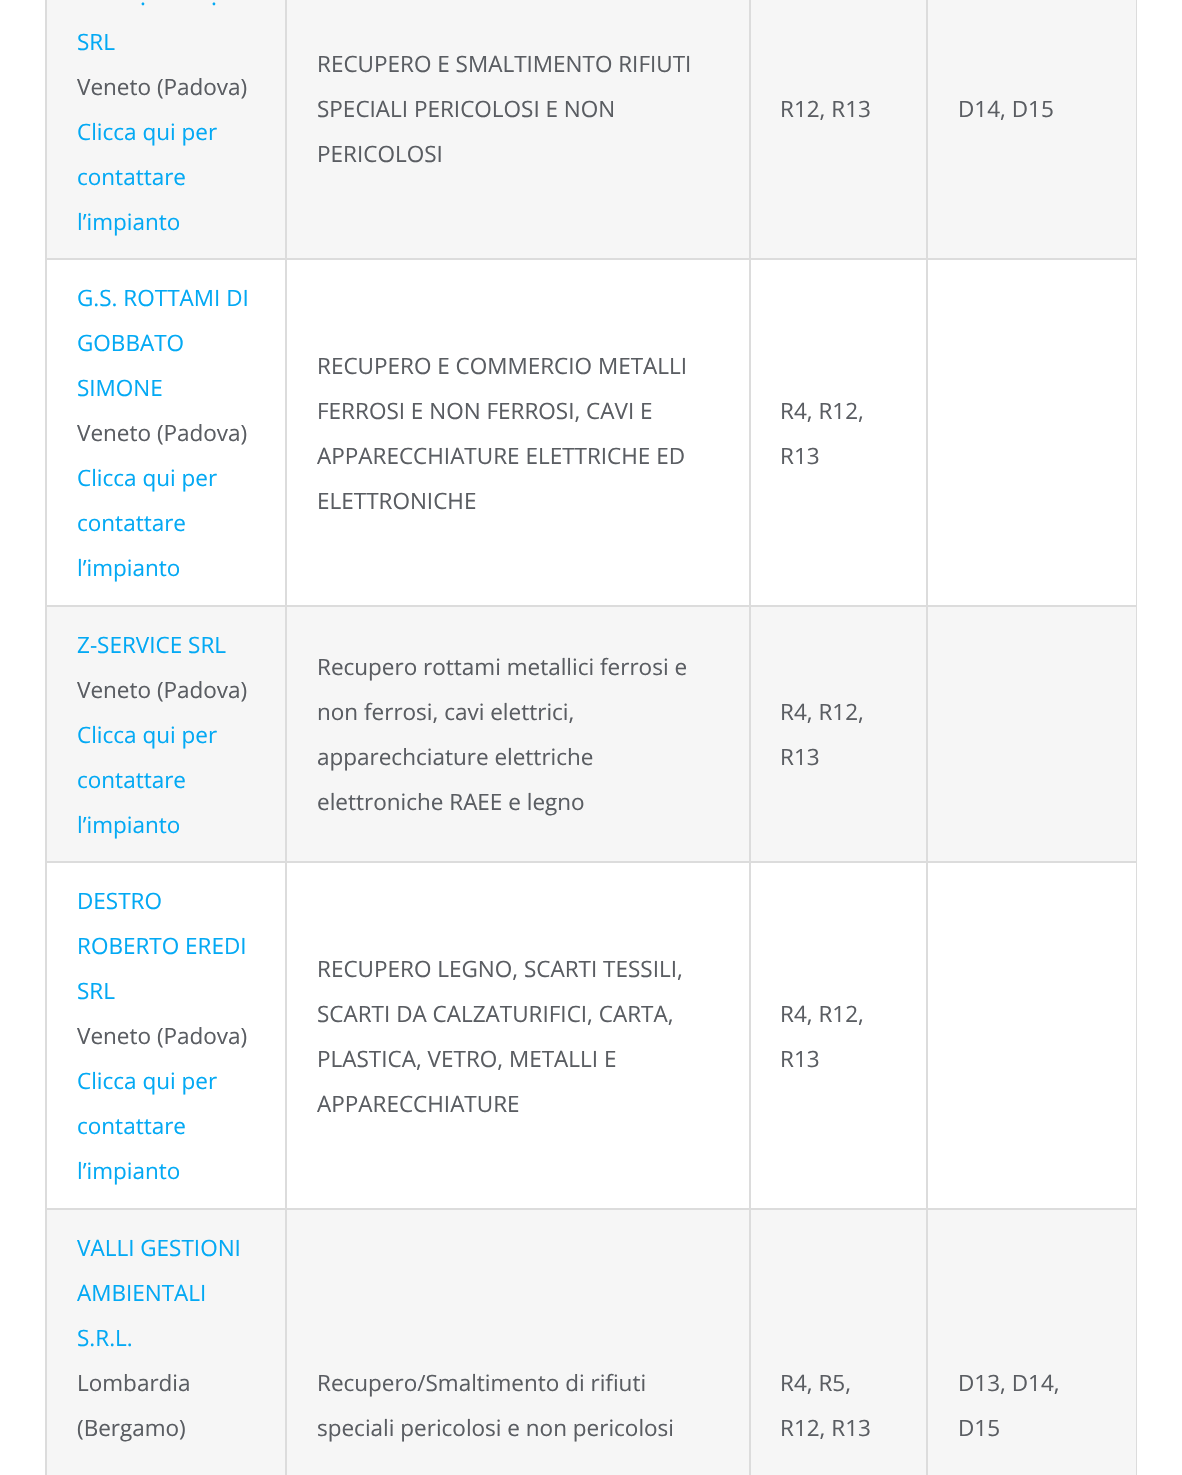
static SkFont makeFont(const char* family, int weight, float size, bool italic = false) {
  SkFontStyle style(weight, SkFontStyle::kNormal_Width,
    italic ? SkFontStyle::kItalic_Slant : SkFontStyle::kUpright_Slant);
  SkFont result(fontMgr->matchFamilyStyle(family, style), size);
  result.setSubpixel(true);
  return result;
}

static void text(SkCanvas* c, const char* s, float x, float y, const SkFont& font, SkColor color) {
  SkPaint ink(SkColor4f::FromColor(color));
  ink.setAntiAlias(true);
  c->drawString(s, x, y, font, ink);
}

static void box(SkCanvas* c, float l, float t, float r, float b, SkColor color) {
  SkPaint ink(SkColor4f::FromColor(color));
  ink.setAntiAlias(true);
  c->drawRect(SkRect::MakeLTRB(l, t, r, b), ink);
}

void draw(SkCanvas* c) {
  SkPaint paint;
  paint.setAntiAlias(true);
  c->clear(0xffffffff);
  box(c, 1136, 0, 1137, 1475, 0xffdcdcdc);
  box(c, 45, 0, 47, 1475, 0xffdcdcdc);
  box(c, 47, 0, 1136, 258, 0xfff6f6f6);
  SkFont face1 = makeFont("Open Sans", 400, 22.5f);
  text(c, ".", 140, 5, face1, 0xff03a9f4);
  text(c, ".", 211, 5, face1, 0xff03a9f4);
  text(c, "SRL", 77, 50, face1, 0xff03a9f4);
  text(c, "Veneto (Padova)", 77, 95, face1, 0xff5a5d62);
  text(c, "Clicca qui per", 77, 140, face1, 0xff03a9f4);
  text(c, "contattare", 77, 185, face1, 0xff03a9f4);
  text(c, "l’impianto", 77, 230, face1, 0xff03a9f4);
  box(c, 926, 258, 1137, 260, 0xffdcdcdc);
  box(c, 926, 605, 1137, 607, 0xffdcdcdc);
  box(c, 47, 607, 1136, 861, 0xfff6f6f6);
  box(c, 926, 861, 1137, 863, 0xffdcdcdc);
  box(c, 926, 1208, 1137, 1210, 0xffdcdcdc);
  box(c, 47, 1210, 1136, 1475, 0xfff6f6f6);
  box(c, 926, 1208, 928, 1475, 0xffdcdcdc);
  box(c, 749, 1208, 927, 1210, 0xffdcdcdc);
  box(c, 926, 861, 928, 1209, 0xffdcdcdc);
  box(c, 749, 861, 927, 863, 0xffdcdcdc);
  box(c, 926, 605, 928, 863, 0xffdcdcdc);
  box(c, 749, 605, 927, 607, 0xffdcdcdc);
  box(c, 926, 258, 928, 606, 0xffdcdcdc);
  box(c, 749, 258, 927, 260, 0xffdcdcdc);
  box(c, 749, 1208, 751, 1475, 0xffdcdcdc);
  box(c, 285, 1208, 750, 1210, 0xffdcdcdc);
  box(c, 749, 861, 751, 1209, 0xffdcdcdc);
  box(c, 285, 861, 750, 863, 0xffdcdcdc);
  box(c, 749, 605, 751, 863, 0xffdcdcdc);
  box(c, 285, 605, 750, 607, 0xffdcdcdc);
  box(c, 749, 258, 751, 606, 0xffdcdcdc);
  box(c, 285, 258, 750, 260, 0xffdcdcdc);
  box(c, 285, 1208, 287, 1475, 0xffdcdcdc);
  box(c, 45, 1208, 287, 1210, 0xffdcdcdc);
  box(c, 285, 861, 287, 1209, 0xffdcdcdc);
  box(c, 45, 861, 287, 863, 0xffdcdcdc);
  box(c, 285, 605, 287, 863, 0xffdcdcdc);
  box(c, 45, 605, 287, 607, 0xffdcdcdc);
  box(c, 285, 258, 287, 606, 0xffdcdcdc);
  box(c, 45, 258, 287, 260, 0xffdcdcdc);
  box(c, 285, 0, 287, 260, 0xffdcdcdc);
  text(c, "RECUPERO E SMALTIMENTO RIFIUTI", 317, 72, face1, 0xff5a5d62);
  text(c, "SPECIALI PERICOLOSI E NON", 317, 117, face1, 0xff5a5d62);
  text(c, "PERICOLOSI", 317, 162, face1, 0xff5a5d62);
  box(c, 749, 0, 751, 260, 0xffdcdcdc);
  text(c, "R12, R13", 780, 117, face1, 0xff5a5d62);
  box(c, 926, 0, 928, 260, 0xffdcdcdc);
  text(c, "D14, D15", 958, 117, face1, 0xff5a5d62);
  text(c, "G.S. ROTTAMI DI", 77, 306, face1, 0xff03a9f4);
  text(c, "GOBBATO", 77, 351, face1, 0xff03a9f4);
  text(c, "SIMONE", 77, 396, face1, 0xff03a9f4);
  text(c, "Veneto (Padova)", 77, 441, face1, 0xff5a5d62);
  text(c, "Clicca qui per", 77, 486, face1, 0xff03a9f4);
  text(c, "contattare", 77, 531, face1, 0xff03a9f4);
  text(c, "l’impianto", 77, 576, face1, 0xff03a9f4);
  text(c, "RECUPERO E COMMERCIO METALLI", 317, 374, face1, 0xff5a5d62);
  text(c, "FERROSI E NON FERROSI, CAVI E", 317, 419, face1, 0xff5a5d62);
  text(c, "APPARECCHIATURE ELETTRICHE ED", 317, 464, face1, 0xff5a5d62);
  text(c, "ELETTRONICHE", 317, 509, face1, 0xff5a5d62);
  text(c, "R4, R12,", 780, 419, face1, 0xff5a5d62);
  text(c, "R13", 780, 464, face1, 0xff5a5d62);
  text(c, "Z-SERVICE SRL", 77, 653, face1, 0xff03a9f4);
  text(c, "Veneto (Padova)", 77, 698, face1, 0xff5a5d62);
  text(c, "Clicca qui per", 77, 743, face1, 0xff03a9f4);
  text(c, "contattare", 77, 788, face1, 0xff03a9f4);
  text(c, "l’impianto", 77, 833, face1, 0xff03a9f4);
  text(c, "Recupero rottami metallici ferrosi e", 317, 675, face1, 0xff5a5d62);
  text(c, "non ferrosi, cavi elettrici,", 317, 720, face1, 0xff5a5d62);
  text(c, "apparechciature elettriche", 317, 765, face1, 0xff5a5d62);
  text(c, "elettroniche RAEE e legno", 317, 810, face1, 0xff5a5d62);
  text(c, "R4, R12,", 780, 720, face1, 0xff5a5d62);
  text(c, "R13", 780, 765, face1, 0xff5a5d62);
  text(c, "DESTRO", 77, 909, face1, 0xff03a9f4);
  text(c, "ROBERTO EREDI", 77, 954, face1, 0xff03a9f4);
  text(c, "SRL", 77, 999, face1, 0xff03a9f4);
  text(c, "Veneto (Padova)", 77, 1044, face1, 0xff5a5d62);
  text(c, "Clicca qui per", 77, 1089, face1, 0xff03a9f4);
  text(c, "contattare", 77, 1134, face1, 0xff03a9f4);
  text(c, "l’impianto", 77, 1179, face1, 0xff03a9f4);
  text(c, "RECUPERO LEGNO, SCARTI TESSILI,", 317, 977, face1, 0xff5a5d62);
  text(c, "SCARTI DA CALZATURIFICI, CARTA,", 317, 1022, face1, 0xff5a5d62);
  text(c, "PLASTICA, VETRO, METALLI E", 317, 1067, face1, 0xff5a5d62);
  text(c, "APPARECCHIATURE", 317, 1112, face1, 0xff5a5d62);
  text(c, "R4, R12,", 780, 1022, face1, 0xff5a5d62);
  text(c, "R13", 780, 1067, face1, 0xff5a5d62);
  text(c, "VALLI GESTIONI", 77, 1256, face1, 0xff03a9f4);
  text(c, "AMBIENTALI", 77, 1301, face1, 0xff03a9f4);
  text(c, "S.R.L.", 77, 1346, face1, 0xff03a9f4);
  text(c, "Lombardia", 77, 1391, face1, 0xff5a5d62);
  text(c, "(Bergamo)", 77, 1436, face1, 0xff5a5d62);
  text(c, "Recupero/Smaltimento di rifiuti", 317, 1391, face1, 0xff5a5d62);
  text(c, "speciali pericolosi e non pericolosi", 317, 1436, face1, 0xff5a5d62);
  text(c, "R4, R5,", 780, 1391, face1, 0xff5a5d62);
  text(c, "R12, R13", 780, 1436, face1, 0xff5a5d62);
  text(c, "D13, D14,", 958, 1391, face1, 0xff5a5d62);
  text(c, "D15", 958, 1436, face1, 0xff5a5d62);
}
